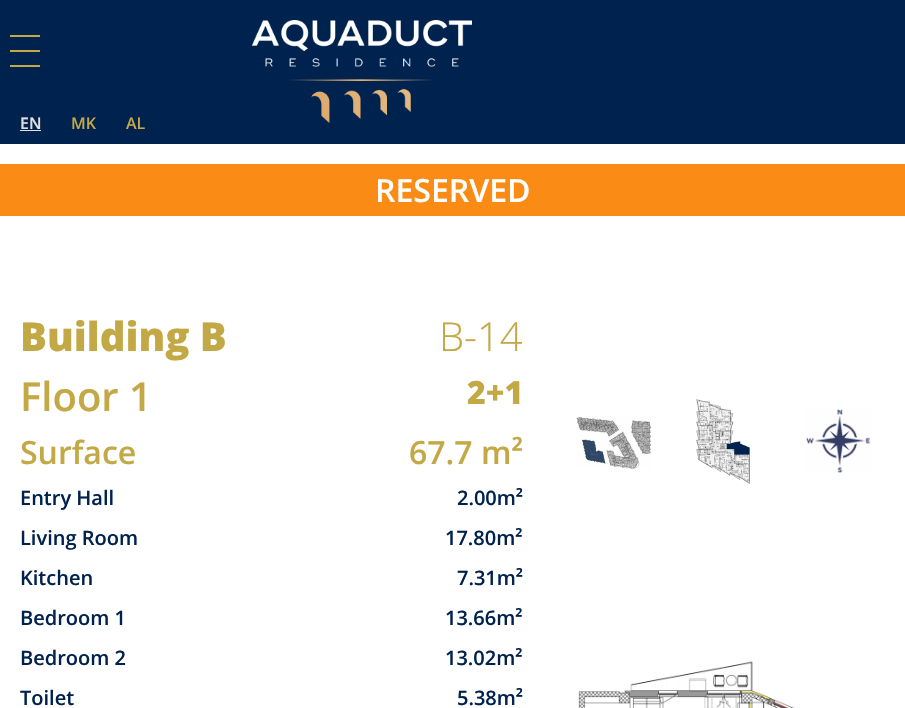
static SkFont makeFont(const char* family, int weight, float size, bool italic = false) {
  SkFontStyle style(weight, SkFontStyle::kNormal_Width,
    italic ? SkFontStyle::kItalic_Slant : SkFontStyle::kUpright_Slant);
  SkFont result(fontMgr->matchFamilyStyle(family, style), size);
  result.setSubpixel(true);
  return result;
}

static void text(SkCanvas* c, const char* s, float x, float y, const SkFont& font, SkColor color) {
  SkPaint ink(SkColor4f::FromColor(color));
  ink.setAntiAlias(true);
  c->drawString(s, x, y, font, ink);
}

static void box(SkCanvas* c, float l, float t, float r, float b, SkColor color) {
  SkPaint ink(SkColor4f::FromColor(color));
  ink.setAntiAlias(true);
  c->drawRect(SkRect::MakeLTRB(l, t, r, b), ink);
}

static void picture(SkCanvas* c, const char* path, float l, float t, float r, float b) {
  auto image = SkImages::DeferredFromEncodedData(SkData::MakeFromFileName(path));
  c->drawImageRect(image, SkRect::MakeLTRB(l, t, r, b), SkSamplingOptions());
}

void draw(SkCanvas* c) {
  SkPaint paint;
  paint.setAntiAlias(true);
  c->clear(0xffffffff);
  box(c, 0, 0, 905, 144, 0xff00224f);
  box(c, 10, 35, 40, 37, 0xffc3a846);
  box(c, 10, 50, 40, 52, 0xffc3a846);
  box(c, 10, 65, 40, 67, 0xffc3a846);
  SkFont face1 = makeFont("Open Sans", 600, 16);
  text(c, "EN", 20, 129, face1, 0xffe7dfd9);
  box(c, 20, 130, 41, 131, 0xffe7dfd9);
  text(c, "MK", 71, 129, face1, 0xffc3a846);
  text(c, "AL", 126, 129, face1, 0xffc3a846);
  picture(c, "img_01.png", 252, 20, 472, 123);
  box(c, 0, 164, 905, 216, 0xfffa8c16);
  SkFont face2 = makeFont("Open Sans", 600, 32);
  text(c, "RESERVED", 375, 202, face2, 0xffffffff);
  SkFont face3 = makeFont("Open Sans", 800, 40);
  text(c, "Building B", 20, 351, face3, 0xffc3a846);
  SkFont face4 = makeFont("Open Sans", 300, 40);
  text(c, "B-14", 439, 351, face4, 0xffc3a846);
  SkFont face5 = makeFont("Open Sans", 600, 40);
  text(c, "Floor 1", 20, 411, face5, 0xffc3a846);
  SkFont face6 = makeFont("Open Sans", 800, 32);
  text(c, "2+1", 467, 404, face6, 0xffc3a846);
  text(c, "Surface", 20, 464, face2, 0xffc3a846);
  text(c, "67.7 m²", 409, 464, face2, 0xffc3a846);
  SkFont face7 = makeFont("Open Sans", 600, 20);
  text(c, "Entry Hall", 20, 505, face7, 0xff00224f);
  text(c, "Living Room", 20, 545, face7, 0xff00224f);
  text(c, "Kitchen", 20, 585, face7, 0xff00224f);
  text(c, "Bedroom 1", 20, 625, face7, 0xff00224f);
  text(c, "Bedroom 2", 20, 665, face7, 0xff00224f);
  text(c, "Toilet", 20, 705, face7, 0xff00224f);
  text(c, "2.00m²", 457, 505, face7, 0xff00224f);
  text(c, "17.80m²", 445, 545, face7, 0xff00224f);
  text(c, "7.31m²", 457, 585, face7, 0xff00224f);
  text(c, "13.66m²", 445, 625, face7, 0xff00224f);
  text(c, "13.02m²", 445, 665, face7, 0xff00224f);
  text(c, "5.38m²", 457, 705, face7, 0xff00224f);
  picture(c, "img_02.png", 576, 417, 651, 469);
  picture(c, "img_03.png", 696, 399, 750, 484);
  picture(c, "img_04.png", 806, 409, 871, 473);
  picture(c, "img_05.png", 578, 661, 795, 708);
}
